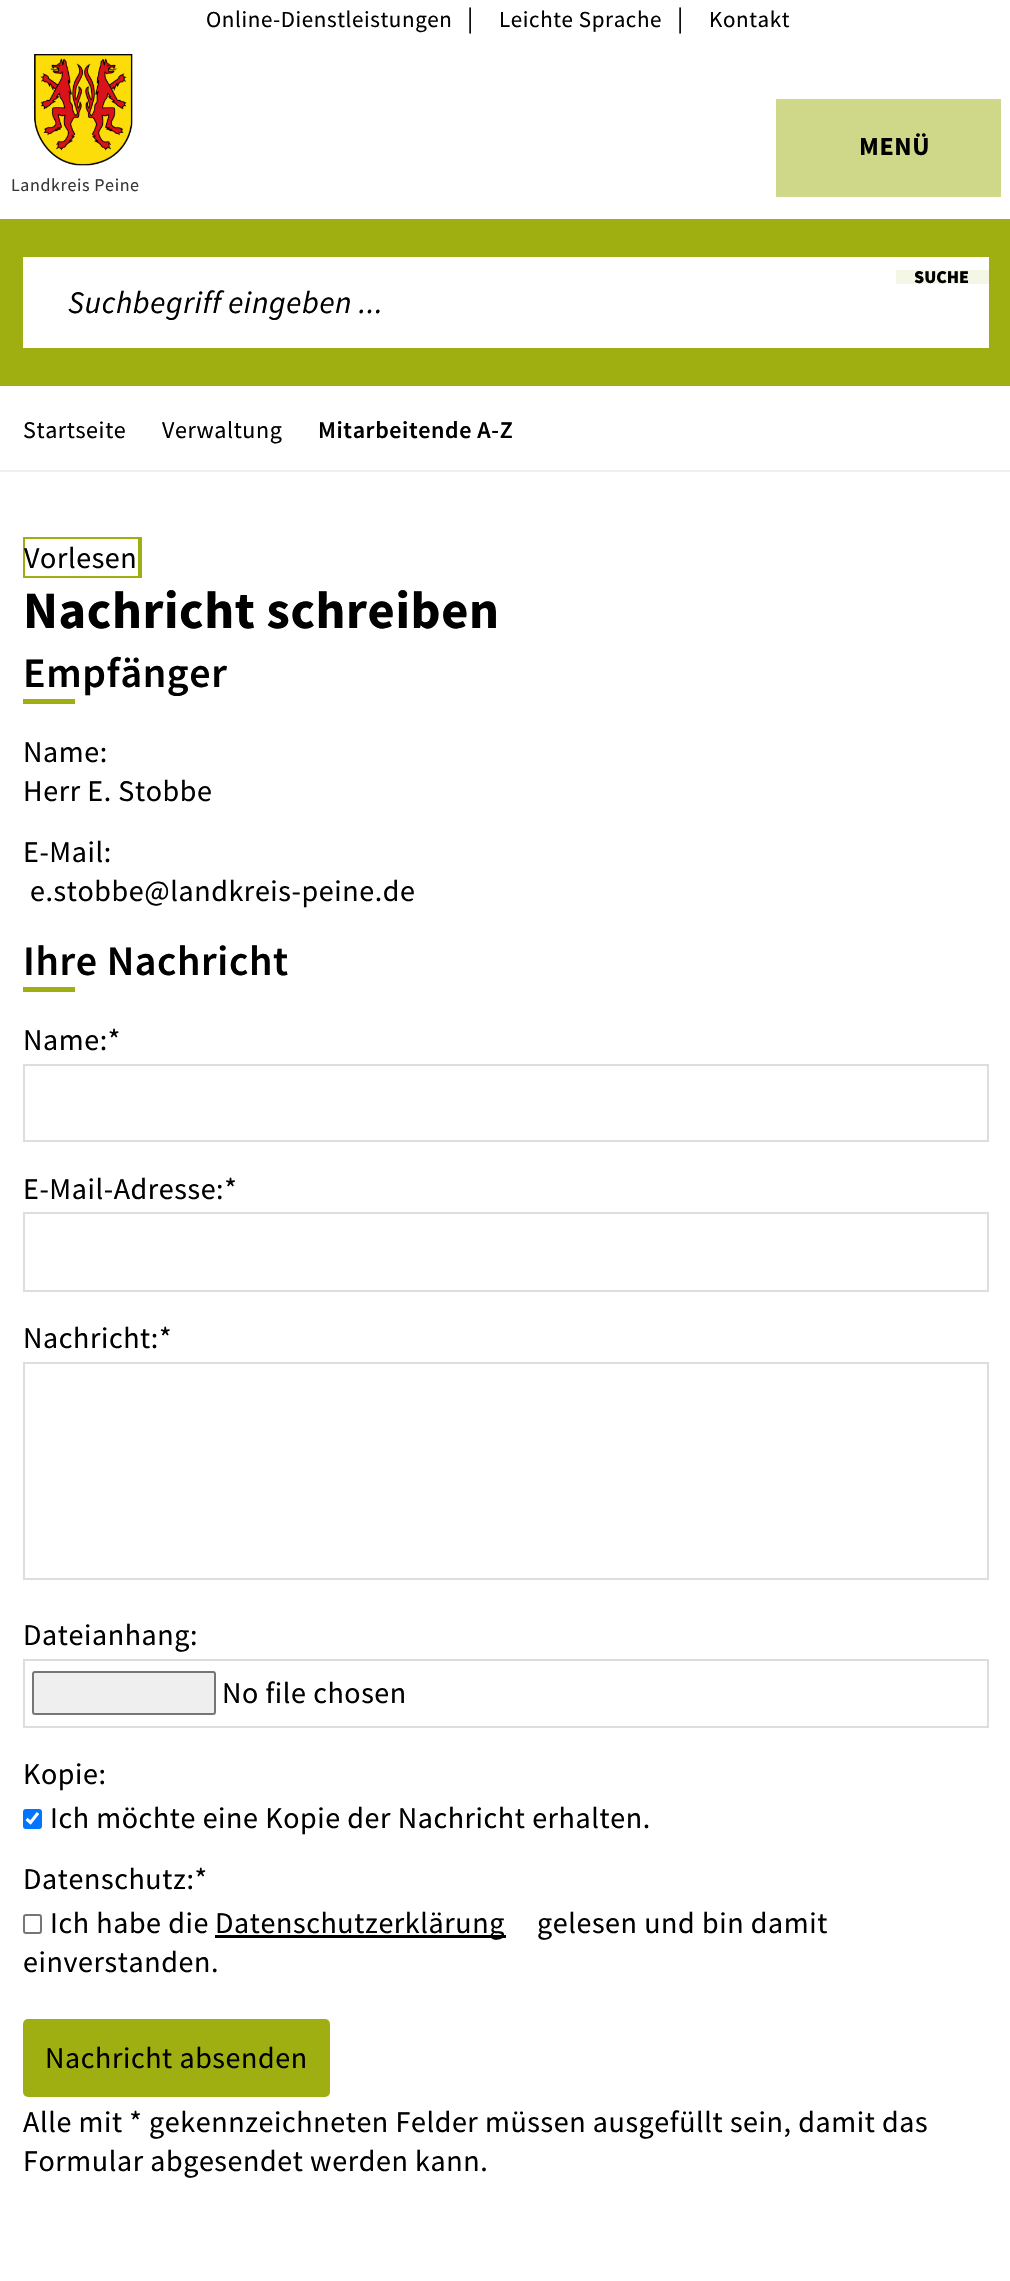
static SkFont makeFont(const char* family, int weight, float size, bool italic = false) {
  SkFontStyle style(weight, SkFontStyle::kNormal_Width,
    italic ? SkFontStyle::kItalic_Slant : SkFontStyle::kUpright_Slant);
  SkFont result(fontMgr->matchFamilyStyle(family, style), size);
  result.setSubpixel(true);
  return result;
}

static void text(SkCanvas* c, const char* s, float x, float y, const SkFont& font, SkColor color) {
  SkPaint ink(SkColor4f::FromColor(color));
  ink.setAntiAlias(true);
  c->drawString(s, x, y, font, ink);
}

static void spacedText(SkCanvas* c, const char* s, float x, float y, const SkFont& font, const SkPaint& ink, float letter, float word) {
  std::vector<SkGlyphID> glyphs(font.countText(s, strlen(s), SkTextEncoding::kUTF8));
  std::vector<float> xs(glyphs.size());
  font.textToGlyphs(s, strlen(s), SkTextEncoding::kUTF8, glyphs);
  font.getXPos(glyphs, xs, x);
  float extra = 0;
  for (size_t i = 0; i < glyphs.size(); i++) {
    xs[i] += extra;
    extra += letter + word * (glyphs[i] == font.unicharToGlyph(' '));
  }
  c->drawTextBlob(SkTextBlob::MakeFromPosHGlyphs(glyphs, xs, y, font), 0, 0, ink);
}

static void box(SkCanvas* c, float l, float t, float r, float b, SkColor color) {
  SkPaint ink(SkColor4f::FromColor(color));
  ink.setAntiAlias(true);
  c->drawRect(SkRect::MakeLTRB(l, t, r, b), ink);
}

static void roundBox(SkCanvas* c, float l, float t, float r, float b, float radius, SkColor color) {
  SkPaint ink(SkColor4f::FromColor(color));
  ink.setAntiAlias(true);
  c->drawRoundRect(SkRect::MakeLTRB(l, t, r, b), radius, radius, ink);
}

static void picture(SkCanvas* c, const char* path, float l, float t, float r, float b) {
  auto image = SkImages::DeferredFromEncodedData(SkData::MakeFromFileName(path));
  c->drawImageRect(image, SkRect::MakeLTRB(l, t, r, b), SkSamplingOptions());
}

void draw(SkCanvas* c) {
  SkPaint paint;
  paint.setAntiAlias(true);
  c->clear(0xffffffff);
  SkFont face1 = makeFont("Source Sans Pro", 400, 23);
  paint.setColor(0xff000000);
  spacedText(c, "Online-Dienstleistungen", 206, 27, face1, paint, 0.6f, 0);
  SkFont face2 = makeFont("Source Sans Pro", 400, 26);
  spacedText(c, "|", 467, 27, face2, paint, 0.6f, 0);
  spacedText(c, "Leichte Sprache", 499, 27, face1, paint, 0.6f, 0);
  spacedText(c, "|", 677, 27, face2, paint, 0.6f, 0);
  spacedText(c, "Kontakt", 709, 27, face1, paint, 0.6f, 0);
  box(c, 776, 99, 1001, 197, 0xffcfd788);
  SkFont face3 = makeFont("Source Sans Pro", 700, 26);
  spacedText(c, "MENÜ", 859, 155, face3, paint, 0.6f, 0);
  picture(c, "img_01.png", 34, 54, 133, 166);
  SkFont face4 = makeFont("Source Sans Pro", 400, 18);
  paint.setColor(0xff383838);
  spacedText(c, "Landkreis Peine", 11, 191, face4, paint, 0.6f, 0);
  box(c, 0, 219, 1010, 386, 0xff9faf12);
  box(c, 23, 257, 989, 348, 0xffffffff);
  box(c, 896, 270, 989, 284, 0xfff5f7e6);
  SkFont face5 = makeFont("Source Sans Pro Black", 900, 18);
  text(c, "SUCHE", 914, 283, face5, 0xff000000);
  SkFont face6 = makeFont("Source Sans Pro", 400, 31.4f, true);
  paint.setColor(0xff000000);
  spacedText(c, "Suchbegriff eingeben ...", 68, 313, face6, paint, 0.6f, 0);
  box(c, 0, 470, 1010, 472, 0xfff0f0f0);
  SkFont face7 = makeFont("Source Sans Pro", 400, 24);
  spacedText(c, "Startseite", 23, 438, face7, paint, 0.6f, 0);
  spacedText(c, "Verwaltung", 162, 438, face7, paint, 0.6f, 0);
  SkFont face8 = makeFont("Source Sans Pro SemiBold", 600, 24);
  spacedText(c, "Mitarbeitende A-Z", 318, 438, face8, paint, 0.6f, 0);
  box(c, 23, 537, 141, 539, 0xff9faf12);
  box(c, 23, 576, 138, 578, 0xff9faf12);
  box(c, 23, 537, 25, 578, 0xff9faf12);
  SkFont face9 = makeFont("Source Sans Pro", 400, 30);
  spacedText(c, "Vorlesen", 24, 568, face9, paint, 0.6f, 0);
  box(c, 140, 537, 142, 578, 0xff9faf12);
  box(c, 138, 576, 141, 578, 0xff9faf12);
  box(c, 138, 539, 140, 576, 0xff9faf12);
  SkFont face10 = makeFont("Source Sans Pro", 700, 52.5f);
  spacedText(c, "Nachricht schreiben", 23, 628, face10, paint, 0.6f, 0);
  SkFont face11 = makeFont("Source Sans Pro SemiBold", 600, 42);
  spacedText(c, "Empfänger", 23, 687, face11, paint, 0.6f, 0);
  box(c, 23, 699, 75, 704, 0xff9faf12);
  spacedText(c, "Name:", 23, 762, face9, paint, 0.6f, 0);
  spacedText(c, "Herr E. Stobbe", 23, 801, face9, paint, 0.6f, 0);
  spacedText(c, "E-Mail:", 23, 862, face9, paint, 0.6f, 0);
  spacedText(c, "e.stobbe@landkreis-peine.de", 30, 901, face9, paint, 0.6f, 0);
  spacedText(c, "Ihre Nachricht", 23, 975, face11, paint, 0.6f, 0);
  box(c, 23, 987, 75, 992, 0xff9faf12);
  spacedText(c, "Name:*", 23, 1050, face9, paint, 0.6f, 0);
  paint.setStyle(SkPaint::kStroke_Style);
  paint.setStrokeWidth(2);
  paint.setColor(0xffdddddd);
  c->drawRect(SkRect::MakeLTRB(24, 1065, 988, 1141), paint);
  paint.setStyle(SkPaint::kFill_Style);
  paint.setColor(0xff000000);
  spacedText(c, "E-Mail-Adresse:*", 23, 1199, face9, paint, 0.6f, 0);
  paint.setStyle(SkPaint::kStroke_Style);
  paint.setColor(0xffdddddd);
  c->drawRect(SkRect::MakeLTRB(24, 1213, 988, 1291), paint);
  paint.setStyle(SkPaint::kFill_Style);
  paint.setColor(0xff000000);
  spacedText(c, "Nachricht:*", 23, 1348, face9, paint, 0.6f, 0);
  paint.setStyle(SkPaint::kStroke_Style);
  paint.setColor(0xffdddddd);
  c->drawRect(SkRect::MakeLTRB(24, 1363, 988, 1579), paint);
  paint.setStyle(SkPaint::kFill_Style);
  paint.setColor(0xff000000);
  spacedText(c, "Dateianhang:", 23, 1645, face9, paint, 0.6f, 0);
  paint.setStyle(SkPaint::kStroke_Style);
  paint.setColor(0xffdddddd);
  c->drawRect(SkRect::MakeLTRB(24, 1660, 988, 1727), paint);
  paint.setStyle(SkPaint::kFill_Style);
  paint.setColor(0xffefefef);
  c->drawRoundRect(SkRect::MakeLTRB(33, 1672, 215, 1714), 2, 2, paint);
  paint.setStyle(SkPaint::kStroke_Style);
  paint.setColor(0xff767676);
  c->drawRoundRect(SkRect::MakeLTRB(33, 1672, 215, 1714), 2, 2, paint);
  paint.setStyle(SkPaint::kFill_Style);
  paint.setColor(0xff000000);
  spacedText(c, "No file chosen", 222, 1703, face9, paint, 0.6f, 0);
  spacedText(c, "Kopie:", 23, 1784, face9, paint, 0.6f, 0);
  roundBox(c, 23, 1809, 42, 1829, 3, 0xff0075ff);
  paint.setStyle(SkPaint::kStroke_Style);
  paint.setStrokeWidth(3.1f);
  paint.setColor(0xffffffff);
  c->drawPath(SkPathBuilder().moveTo(26.5f, 1819).lineTo(30.5f, 1822.5f).lineTo(38, 1813).detach(), paint);
  paint.setStyle(SkPaint::kFill_Style);
  paint.setColor(0xff000000);
  spacedText(c, "Ich möchte eine Kopie der Nachricht erhalten.", 50, 1828, face9, paint, 0.6f, 0);
  spacedText(c, "Datenschutz:*", 23, 1889, face9, paint, 0.6f, 0);
  paint.setStyle(SkPaint::kStroke_Style);
  paint.setStrokeWidth(2);
  paint.setColor(0xff767676);
  c->drawRoundRect(SkRect::MakeLTRB(24, 1915, 41, 1933), 2, 2, paint);
  paint.setStyle(SkPaint::kFill_Style);
  paint.setColor(0xff000000);
  spacedText(c, "Ich habe die", 50, 1933, face9, paint, 0.6f, 0);
  box(c, 215, 1935, 506, 1938, 0xff000000);
  spacedText(c, "Datenschutzerklärung", 215, 1933, face9, paint, 0.6f, 0);
  spacedText(c, "gelesen und bin damit", 537, 1933, face9, paint, 0.6f, 0);
  spacedText(c, "einverstanden.", 23, 1972, face9, paint, 0.6f, 0);
  roundBox(c, 23, 2019, 330, 2097, 5, 0xff9faf12);
  spacedText(c, "Nachricht absenden", 45, 2068, face9, paint, 0.6f, 0);
  spacedText(c, "Alle mit *", 23, 2132, face9, paint, 0.6f, 0);
  spacedText(c, "gekennzeichneten Felder müssen ausgefüllt sein, damit das", 149, 2132, face9, paint, 0.6f, 0);
  spacedText(c, "Formular abgesendet werden kann.", 23, 2171, face9, paint, 0.6f, 0);
}
